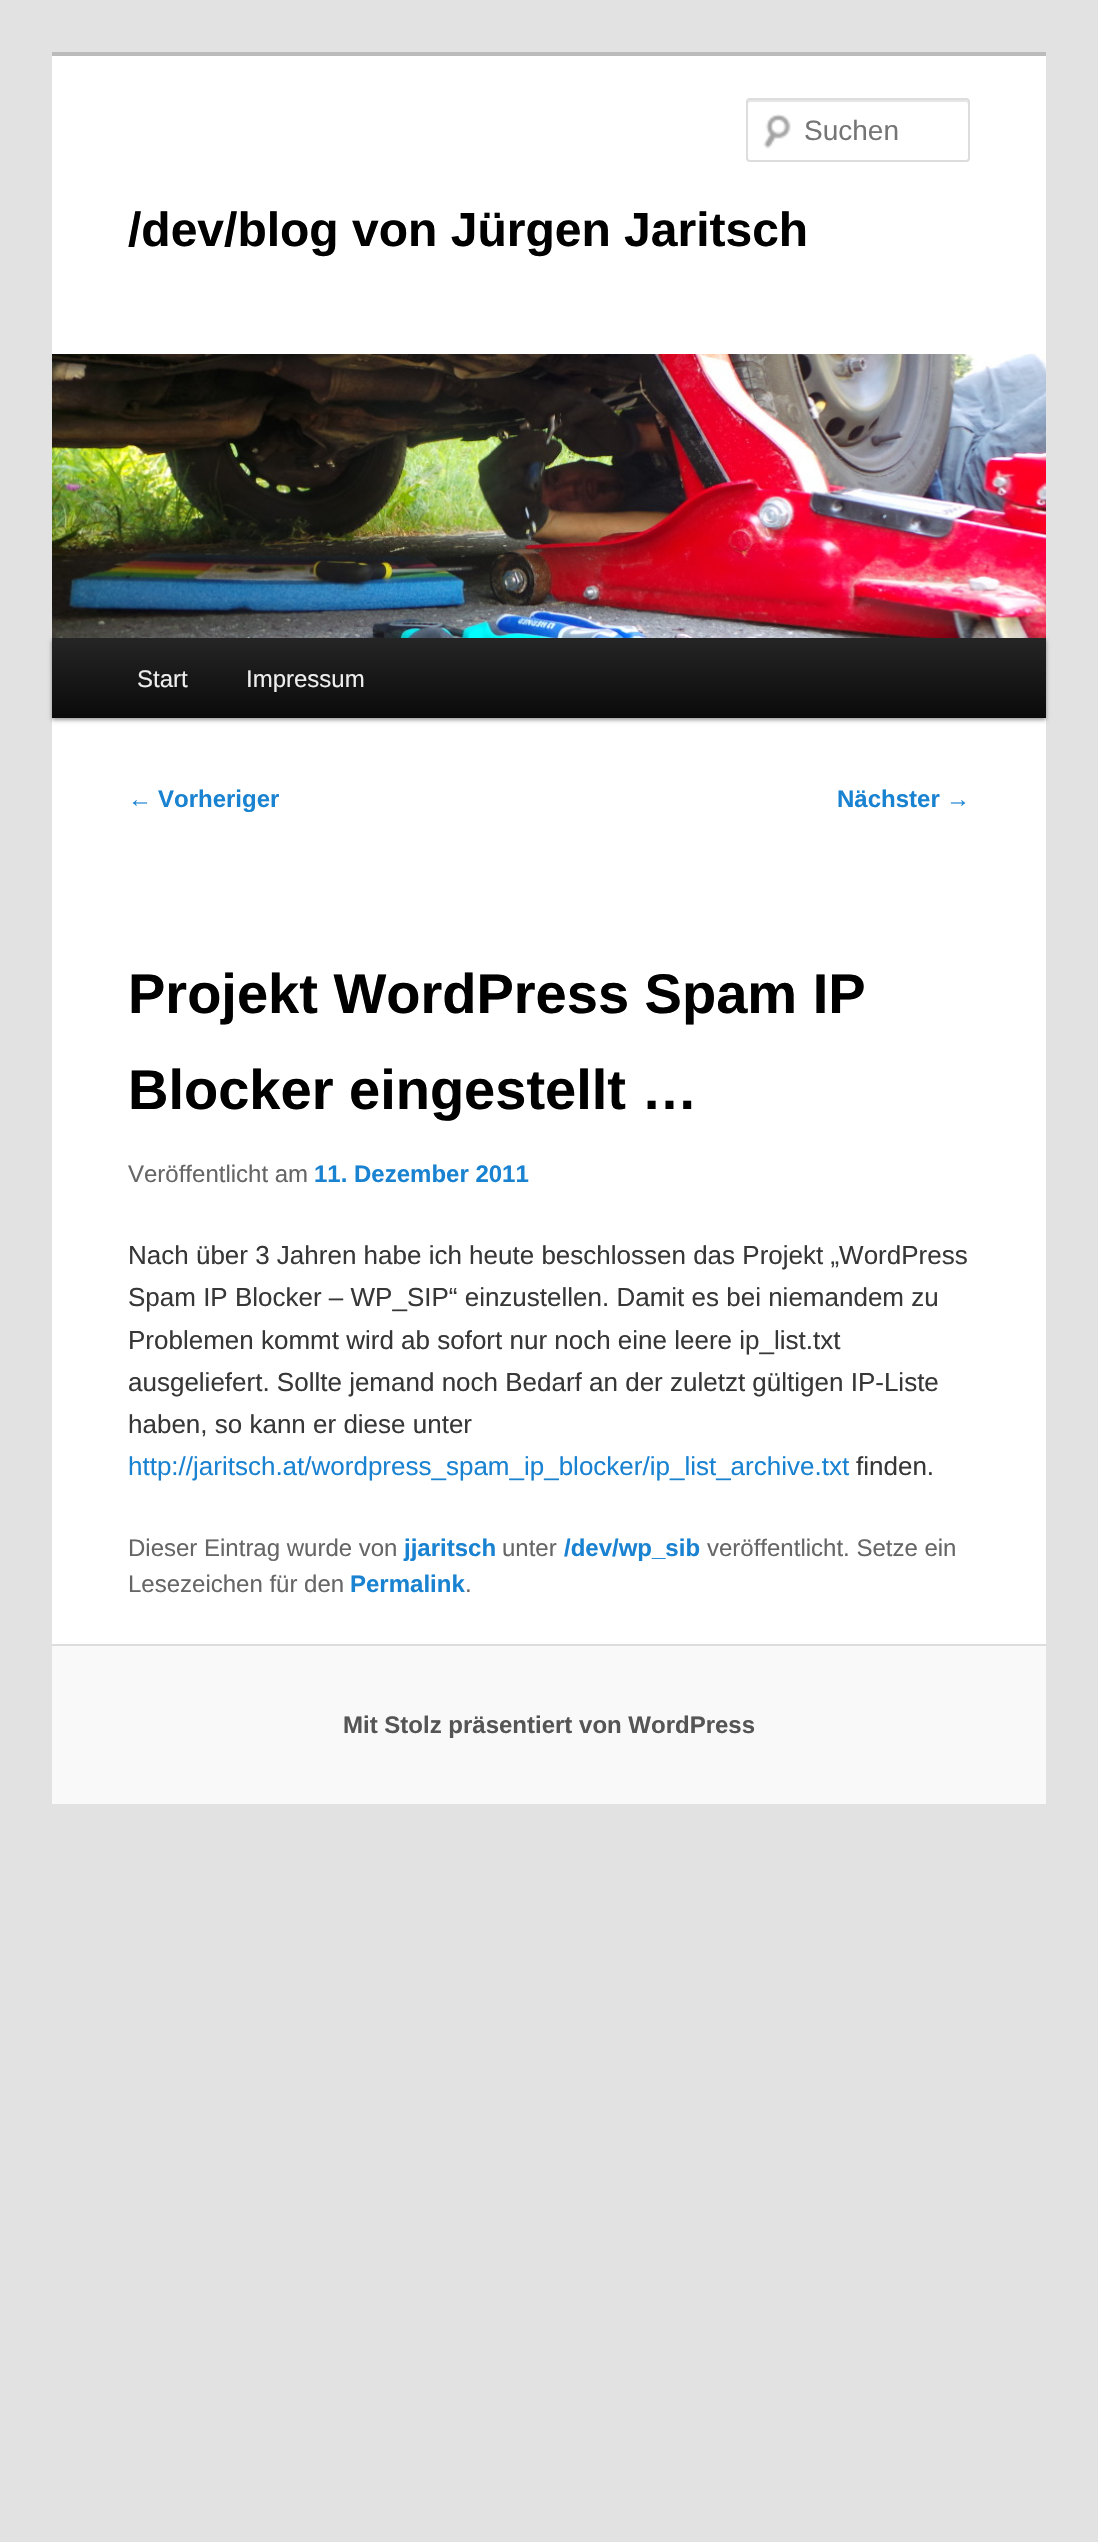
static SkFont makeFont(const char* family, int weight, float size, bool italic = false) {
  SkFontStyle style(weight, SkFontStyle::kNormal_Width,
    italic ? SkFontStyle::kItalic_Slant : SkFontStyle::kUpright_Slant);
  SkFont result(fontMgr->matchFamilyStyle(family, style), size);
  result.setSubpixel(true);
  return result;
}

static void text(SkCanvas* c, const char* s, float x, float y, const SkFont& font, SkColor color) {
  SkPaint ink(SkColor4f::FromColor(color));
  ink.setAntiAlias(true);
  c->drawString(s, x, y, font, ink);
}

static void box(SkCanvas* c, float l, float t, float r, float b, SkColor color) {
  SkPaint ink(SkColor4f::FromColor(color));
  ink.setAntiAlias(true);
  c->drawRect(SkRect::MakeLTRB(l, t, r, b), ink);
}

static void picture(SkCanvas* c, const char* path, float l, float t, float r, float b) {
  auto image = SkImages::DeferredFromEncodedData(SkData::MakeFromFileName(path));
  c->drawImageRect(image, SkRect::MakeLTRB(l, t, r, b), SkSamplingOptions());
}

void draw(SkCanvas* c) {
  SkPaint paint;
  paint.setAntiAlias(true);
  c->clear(0xffe2e2e2);
  box(c, 52, 56, 1046, 1644, 0xffffffff);
  box(c, 52, 52, 1046, 56, 0xffbbbbbb);
  picture(c, "img_01.png", 763, 114, 791, 149);
  paint.setColor(0xffe6e6e6);
  c->drawPath(SkPathBuilder().moveTo(750, 102).lineTo(966, 102).cubicTo(967, 102, 968, 103, 968, 104).lineTo(968, 102).cubicTo(968, 101, 967, 100, 966, 100).lineTo(750, 100).cubicTo(749, 100, 748, 101, 748, 102).lineTo(748, 104).cubicTo(748, 103, 749, 102, 750, 102).close().detach(), paint);
  paint.setStyle(SkPaint::kStroke_Style);
  paint.setStrokeWidth(2);
  paint.setColor(0xffdddddd);
  c->drawRoundRect(SkRect::MakeLTRB(747, 99, 969, 161), 3, 3, paint);
  SkFont face1 = makeFont("Liberation Sans", 400, 28);
  text(c, "Suchen", 804, 140, face1, 0xff757575);
  SkFont face2 = makeFont("Liberation Sans", 700, 48);
  text(c, "/dev/blog von Jürgen Jaritsch", 128, 246, face2, 0xff000000);
  paint.setStyle(SkPaint::kFill_Style);
  paint.setColor(0x66000000);
  paint.setMaskFilter(SkMaskFilter::MakeBlur(kNormal_SkBlurStyle, 2));
  c->drawRect(SkRect::MakeLTRB(52, 640, 1046, 720), paint);
  paint.setMaskFilter(nullptr);
  picture(c, "img_02.png", 52, 354, 1046, 638);
  {
    const SkColor colors[] = {0xff252525, 0xff0a0a0a};
    const float stops[] = {0, 1};
    const SkPoint ends[] = {{549, 638}, {549, 718}};
    paint.setShader(SkGradientShader::MakeLinear(ends, colors, stops, 2, SkTileMode::kClamp));
    paint.setAlpha(255);
  }
  c->drawRect(SkRect::MakeLTRB(52, 638, 1046, 718), paint);
  SkFont face3 = makeFont("Liberation Sans", 400, 24);
  text(c, "Start", 137, 687, face3, 0xffeeeeee);
  text(c, "Impressum", 246, 687, face3, 0xffeeeeee);
  text(c, "←", 128, 807, face3, 0xff1982d1);
  SkFont face4 = makeFont("Liberation Sans", 700, 24);
  text(c, "Vorheriger", 158, 807, face4, 0xff1982d1);
  text(c, "Nächster", 837, 807, face4, 0xff1982d1);
  text(c, "→", 946, 807, face3, 0xff1982d1);
  SkFont face5 = makeFont("Liberation Sans", 700, 56);
  text(c, "Projekt WordPress Spam IP", 128, 1013, face5, 0xff000000);
  text(c, "Blocker eingestellt …", 128, 1109, face5, 0xff000000);
  text(c, "Veröffentlicht am", 128, 1182, face3, 0xff666666);
  text(c, "11. Dezember 2011", 314, 1182, face4, 0xff1982d1);
  SkFont face6 = makeFont("Liberation Sans", 400, 26);
  text(c, "Nach über 3 Jahren habe ich heute beschlossen das Projekt „WordPress", 128, 1264, face6, 0xff373737);
  text(c, "Spam IP Blocker – WP_SIP“ einzustellen. Damit es bei niemandem zu", 128, 1306, face6, 0xff373737);
  text(c, "Problemen kommt wird ab sofort nur noch eine leere ip_list.txt", 128, 1349, face6, 0xff373737);
  text(c, "ausgeliefert. Sollte jemand noch Bedarf an der zuletzt gültigen IP-Liste", 128, 1391, face6, 0xff373737);
  text(c, "haben, so kann er diese unter", 128, 1433, face6, 0xff373737);
  text(c, "http://jaritsch.at/wordpress_spam_ip_blocker/ip_list_archive.txt", 128, 1475, face6, 0xff1982d1);
  text(c, "finden.", 856, 1475, face6, 0xff373737);
  text(c, "Dieser Eintrag wurde von", 128, 1556, face3, 0xff666666);
  text(c, "jjaritsch", 404, 1556, face4, 0xff1982d1);
  text(c, "unter", 502, 1556, face3, 0xff666666);
  text(c, "/dev/wp_sib", 564, 1556, face4, 0xff1982d1);
  text(c, "veröffentlicht. Setze ein", 707, 1556, face3, 0xff666666);
  text(c, "Lesezeichen für den", 128, 1592, face3, 0xff666666);
  text(c, "Permalink", 350, 1592, face4, 0xff1982d1);
  text(c, ".", 465, 1592, face3, 0xff666666);
  box(c, 52, 1646, 1046, 1804, 0xfff9f9f9);
  box(c, 52, 1644, 1046, 1646, 0xffdddddd);
  text(c, "Mit Stolz präsentiert von WordPress", 343, 1733, face4, 0xff555555);
}
